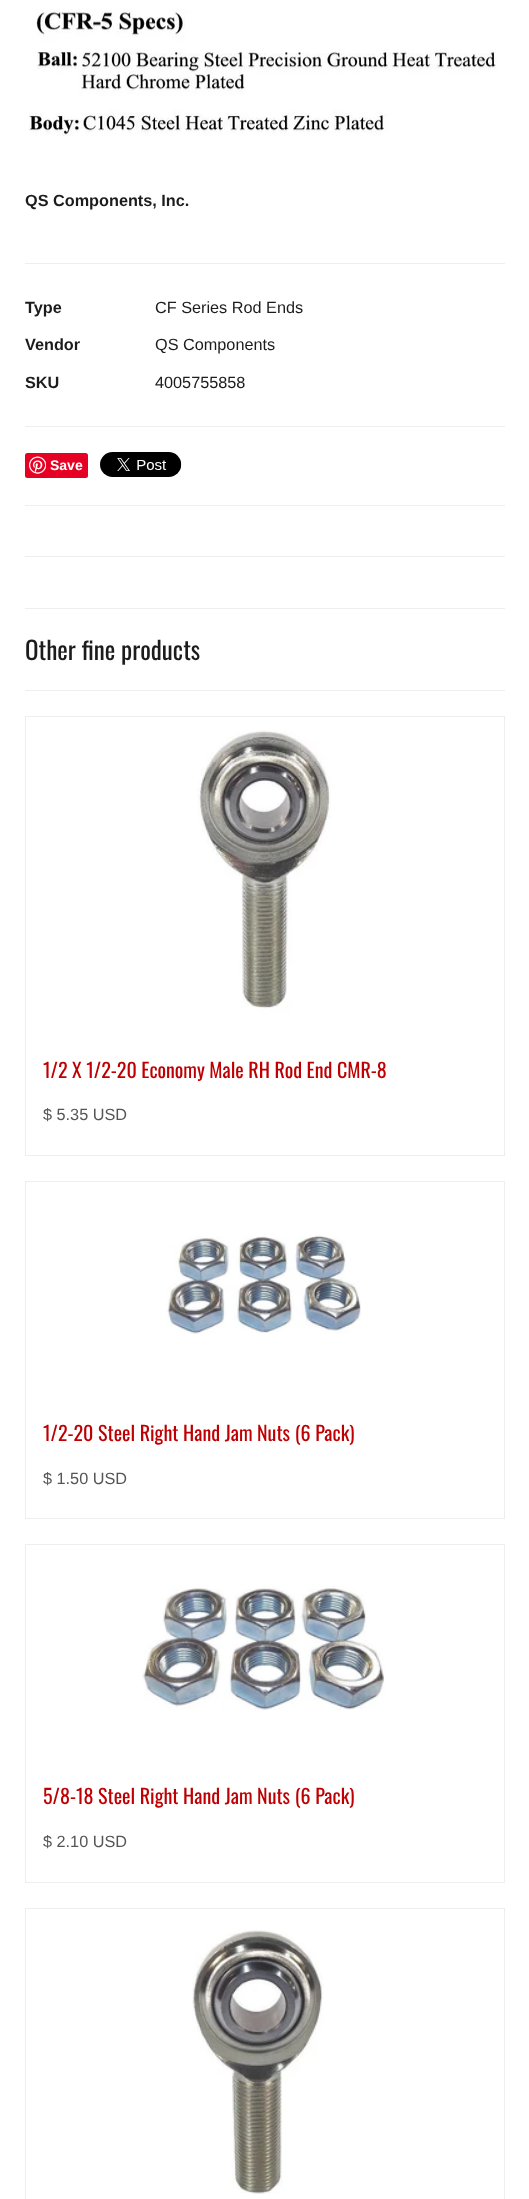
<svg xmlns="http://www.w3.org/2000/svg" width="529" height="2199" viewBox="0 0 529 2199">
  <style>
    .t1 { font: bold 16.25px Liberation Sans; fill: #1c1c1c; }
    .t2 { font: 16.25px Liberation Sans; fill: #1c1c1c; }
    .t3 { font: bold 14px Liberation Sans; fill: #fff; }
    .t4 { font: 25px Oswald; fill: #1c1c1c; }
    .t5 { font: 20px Oswald; fill: #bf0003; }
    .t6 { font: 16.25px Liberation Sans; fill: #555; }
  </style>
  <rect width="100%" height="100%" fill="#fff"/>
  <image x="29" y="9" width="468" height="127" href="images/1.png"/>
  <text x="25" y="206" class="t1">QS Components, Inc.</text>
  <rect x="25" y="263" width="480" height="1" fill="#eee"/>
  <text x="25" y="313" class="t1">Type</text>
  <text x="155" y="313" class="t2">CF Series Rod Ends</text>
  <text x="25" y="350" class="t1">Vendor</text>
  <text x="155" y="350" class="t2">QS Components</text>
  <text x="25" y="388" class="t1">SKU</text>
  <text x="155" y="388" class="t2">4005755858</text>
  <rect x="25" y="426" width="480" height="1" fill="#eee"/>
  <rect x="25" y="453" width="63" height="25" rx="2.5" fill="#e60023"/>
  <image x="29" y="456" width="17" height="18" href="images/2.png"/>
  <text x="50" y="470" class="t3">Save</text>
  <image x="100" y="452" width="82" height="25" href="images/3.png"/>
  <rect x="25" y="505" width="480" height="1" fill="#eee"/>
  <rect x="25" y="556" width="480" height="1" fill="#eee"/>
  <rect x="25" y="608" width="480" height="1" fill="#eee"/>
  <text x="25" y="660" class="t4">Other fine products</text>
  <rect x="25" y="690" width="480" height="1" fill="#eee"/>
  <rect x="25.5" y="716.5" width="479" height="439" fill="none" stroke="#eee"/>
  <image x="197" y="730" width="134" height="282" href="images/4.png"/>
  <text x="43" y="1078" class="t5">1/2 X 1/2-20 Economy Male RH Rod End CMR-8</text>
  <text x="43" y="1120" class="t6">$ 5.35 USD</text>
  <rect x="25.5" y="1181.5" width="479" height="337" fill="none" stroke="#eee"/>
  <image x="165" y="1235" width="196" height="99" href="images/5.png"/>
  <text x="43" y="1441" class="t5">1/2-20 Steel Right Hand Jam Nuts (6 Pack)</text>
  <text x="43" y="1484" class="t6">$ 1.50 USD</text>
  <rect x="25.5" y="1544.5" width="479" height="338" fill="none" stroke="#eee"/>
  <image x="142" y="1586" width="243" height="124" href="images/6.png"/>
  <text x="43" y="1804" class="t5">5/8-18 Steel Right Hand Jam Nuts (6 Pack)</text>
  <text x="43" y="1847" class="t6">$ 2.10 USD</text>
  <rect x="25.5" y="1908.5" width="479" height="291" fill="none" stroke="#eee"/>
  <image x="192" y="1930" width="132" height="264" href="images/7.png"/>
</svg>
